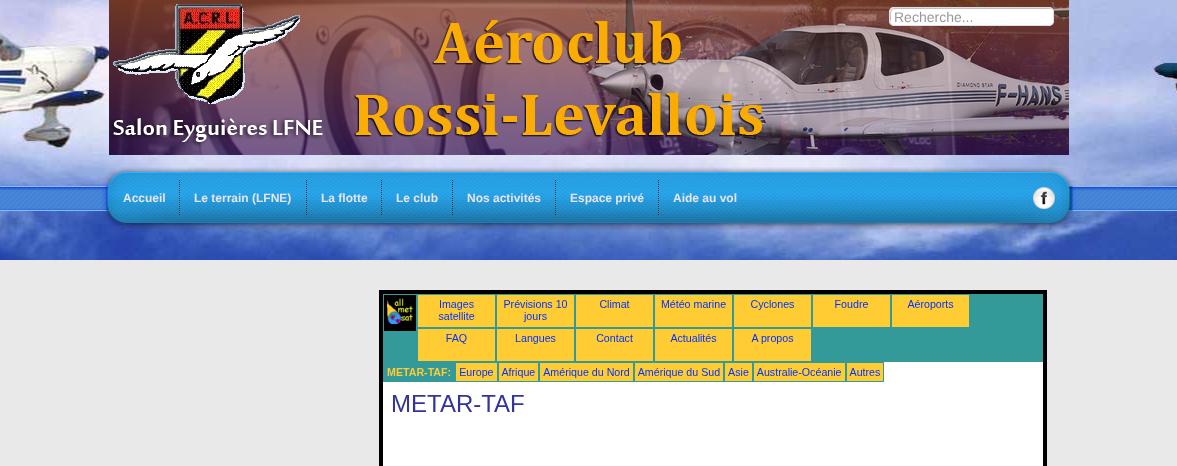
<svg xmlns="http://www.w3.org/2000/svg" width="1177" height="466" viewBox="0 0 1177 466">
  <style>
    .t1 { font: 14px Liberation Sans; fill: #999; }
    .t2 { font: bold 12px Liberation Sans; fill: #e7e4ed; }
  </style>
  <rect width="100%" height="100%" fill="#fff"/>
  <image x="0" y="0" width="1177" height="260" href="images/1.png"/>
  <image x="0" y="167" width="1177" height="63" href="images/2.png"/>
  <image x="109" y="0" width="960" height="155" href="images/3.png"/>
  <rect x="889" y="7" width="165" height="19" rx="5" fill="#fff"/>
  <path d="M895 9H1050L1052 10L1050 8H894L892 9C889 10 889 23 892 24C890 23 891 20 891 18C891 15 890 9 895 9Z" fill="#c0c0c0"/>
  <rect x="889.5" y="7.5" width="164" height="18" rx="4.5" fill="none" stroke="#dedede"/>
  <text x="894" y="22" class="t1">Recherche...</text>
  <image x="1033" y="187" width="22" height="22" href="images/4.png"/>
  <text x="123" y="202" class="t2">Accueil</text>
  <path d="M179.5 180V216" fill="none" stroke="#333" stroke-dasharray="1 1"/>
  <text x="194" y="202" class="t2">Le terrain (LFNE)</text>
  <path d="M306.5 180V216" fill="none" stroke="#333" stroke-dasharray="1 1"/>
  <text x="321" y="202" class="t2">La flotte</text>
  <path d="M381.5 180V216" fill="none" stroke="#333" stroke-dasharray="1 1"/>
  <text x="396" y="202" class="t2">Le club</text>
  <path d="M452.5 180V216" fill="none" stroke="#333" stroke-dasharray="1 1"/>
  <text x="467" y="202" class="t2">Nos activités</text>
  <path d="M555.5 180V216" fill="none" stroke="#333" stroke-dasharray="1 1"/>
  <text x="570" y="202" class="t2">Espace privé</text>
  <path d="M658.5 180V216" fill="none" stroke="#333" stroke-dasharray="1 1"/>
  <text x="673" y="202" class="t2">Aide au vol</text>
  <rect x="0" y="260" width="1177" height="206" fill="#e9e9e9"/>
  <image x="379" y="290" width="668" height="176" href="images/5.png"/>
</svg>
